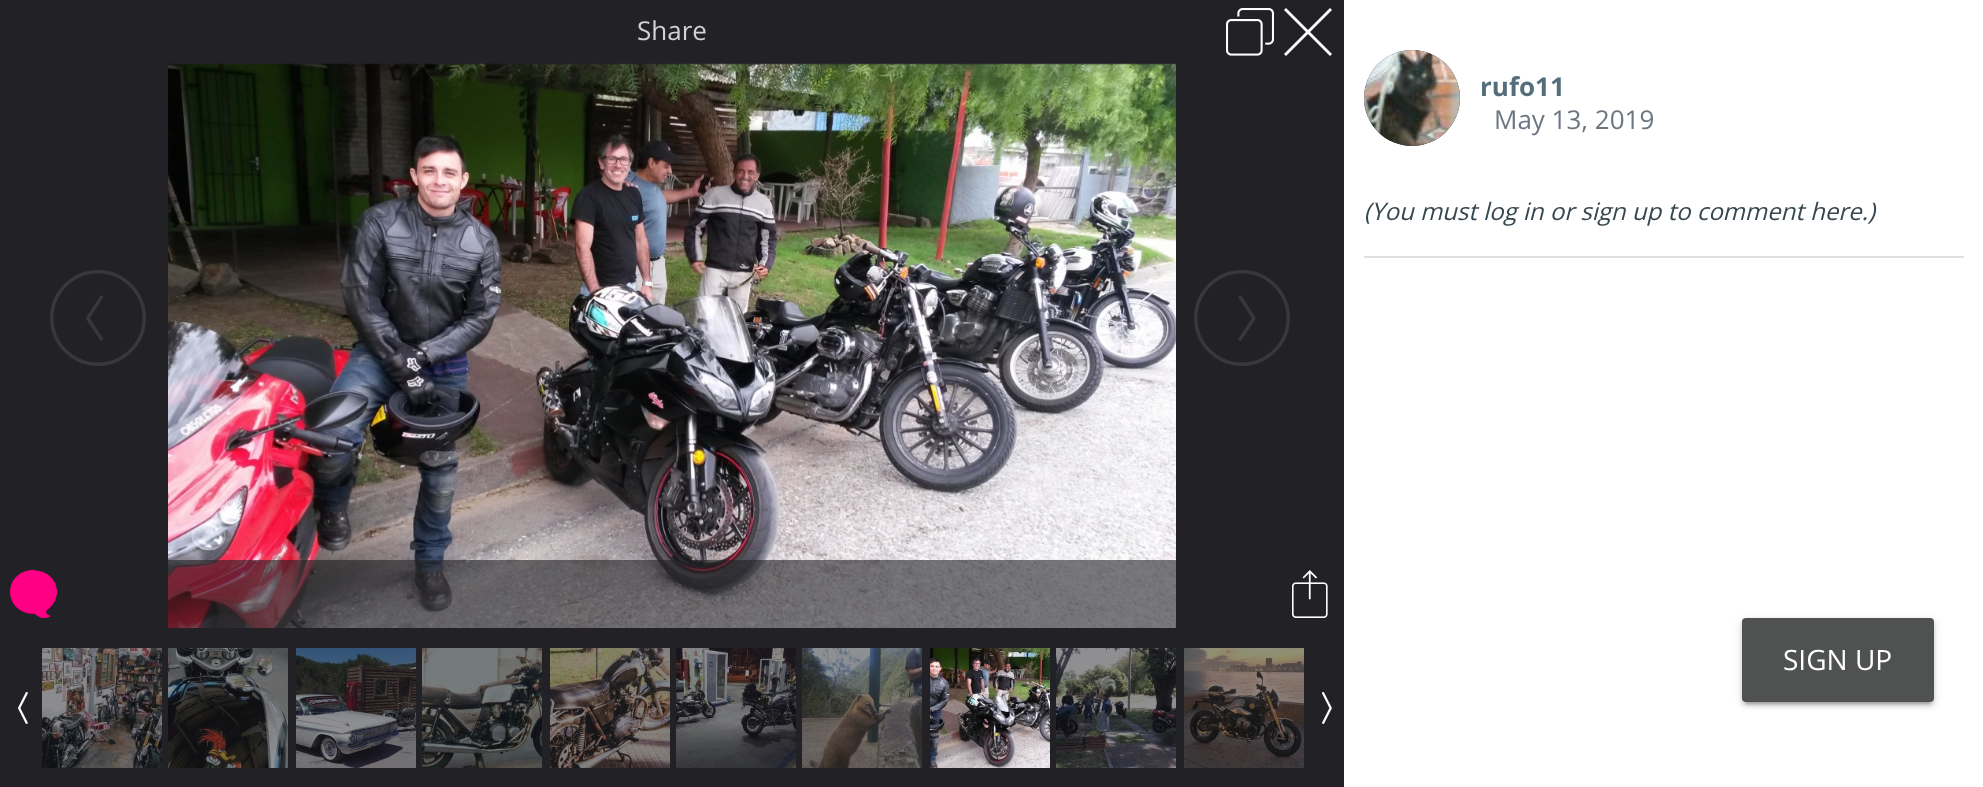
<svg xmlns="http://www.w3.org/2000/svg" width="1983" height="787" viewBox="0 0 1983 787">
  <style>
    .t1 { font: 26px Open Sans; fill: #d3d3d4; }
    .t2 { font: bold 26px Open Sans; fill: #546e7a; }
    .t3 { font: 26px Open Sans; fill: #6c7680; }
    .t4 { font: italic 24px Open Sans; fill: #37474f; }
    .t5 { font: 28px Open Sans; fill: #fff; }
  </style>
  <rect width="100%" height="100%" fill="#212126"/>
  <image x="1226" y="8" width="48" height="48" href="images/1.png"/>
  <path d="M1332 10L1310 32L1332 54L1330 56L1308 34L1286 56L1284 54L1306 32L1284 10L1286 8L1308 30L1330 8Z" fill="#fff"/>
  <text x="637" y="40" class="t1">Share</text>
  <image x="50" y="270" width="96" height="96" href="images/2.png"/>
  <image x="168" y="63" width="1008" height="565" href="images/3.png"/>
  <image x="1194" y="270" width="96" height="96" href="images/4.png"/>
  <rect x="168" y="560" width="1008" height="68" fill="#21212499"/>
  <path d="M57 592C57 600 52 607 46 611C46 614 48 615 51 616C46 619 40 619 35 614C3 614 2 573 31 570C37 570 42 571 47 574C53 578 57 584 57 592Z" fill="#ff0084"/>
  <image x="1292" y="570" width="36" height="48" href="images/5.png"/>
  <image x="18" y="692" width="10" height="32" href="images/6.png"/>
  <image x="42" y="648" width="120" height="120" href="images/7.png"/>
  <image x="168" y="648" width="120" height="120" href="images/8.png"/>
  <image x="296" y="648" width="120" height="120" href="images/9.png"/>
  <image x="422" y="648" width="120" height="120" href="images/10.png"/>
  <image x="550" y="648" width="120" height="120" href="images/11.png"/>
  <image x="676" y="648" width="120" height="120" href="images/12.png"/>
  <image x="802" y="648" width="120" height="120" href="images/13.png"/>
  <image x="930" y="648" width="120" height="120" href="images/14.png"/>
  <image x="1056" y="648" width="120" height="120" href="images/15.png"/>
  <image x="1184" y="648" width="120" height="120" href="images/16.png"/>
  <image x="1322" y="692" width="10" height="32" href="images/17.png"/>
  <rect x="1344" y="0" width="639" height="787" fill="#fff"/>
  <rect x="1364" y="256" width="600" height="2" fill="#e0e0e0"/>
  <circle cx="1412" cy="98" r="48" fill="#152c4e"/>
  <image x="1364" y="50" width="96" height="96" href="images/18.png"/>
  <text x="1480" y="96" class="t2">rufo11</text>
  <text x="1494" y="129" class="t3">May 13, 2019</text>
  <text x="1364" y="220" class="t4">(You must log in or sign up to comment here.)</text>
  <rect x="1742" y="620" width="192" height="84" rx="4" fill="#0000001f" filter="blur(5px)"/>
  <rect x="1746" y="628" width="184" height="76" fill="#00000033" filter="blur(1px)"/>
  <rect x="1742" y="622" width="192" height="84" rx="4" fill="#00000024" filter="blur(2px)"/>
  <rect x="1742" y="618" width="192" height="84" rx="4" fill="#505252"/>
  <text x="1783" y="670" class="t5">SIGN UP</text>
</svg>
